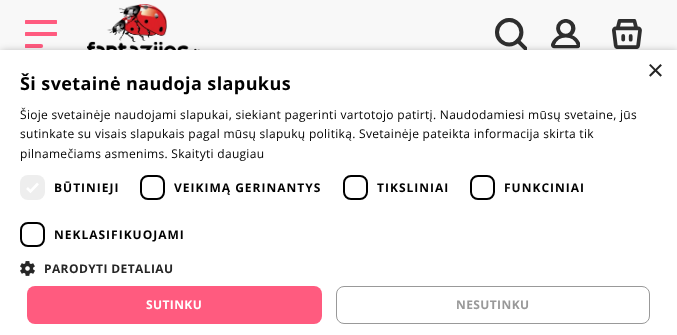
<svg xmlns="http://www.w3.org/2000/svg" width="677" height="335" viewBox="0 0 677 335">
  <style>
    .t1 { font: 29px Liberation Sans; fill: #262626; }
    .t2 { font: bold 18px Open Sans; letter-spacing: 0.4px; fill: #000; }
    .t3 { font: 12px Open Sans; letter-spacing: 0.3px; fill: #000; }
    .t4 { font: bold 12px Open Sans; letter-spacing: 1px; fill: #000; }
    .t5 { font: bold 12px Open Sans; letter-spacing: 0.4px; fill: #262626; }
    .t6 { font: bold 12px Open Sans; letter-spacing: 0.4px; fill: #fff; }
    .t7 { font: bold 12px Open Sans; letter-spacing: 0.4px; fill: #999; }
  </style>
  <rect width="100%" height="100%" fill="#f8f8f8"/>
  <image x="25" y="20" width="32" height="28" href="images/1.png"/>
  <image x="87" y="4" width="113" height="46" href="images/2.png"/>
  <image x="495" y="18" width="32" height="32" href="images/3.png"/>
  <image x="551" y="19" width="29" height="30" href="images/4.png"/>
  <image x="612" y="19" width="30" height="30" href="images/5.png"/>
  <rect x="1" y="52" width="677" height="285" fill="#00000059" filter="blur(4px)"/>
  <rect x="0" y="50" width="677" height="285" fill="#fff"/>
  <text x="647" y="80" class="t1">×</text>
  <text x="20" y="90" class="t2">Ši svetainė naudoja slapukus</text>
  <text x="20" y="119" class="t3">Šioje svetainėje naudojami slapukai, siekiant pagerinti vartotojo patirtį. Naudodamiesi mūsų svetaine, jūs</text>
  <text x="20" y="138" class="t3">sutinkate su visais slapukais pagal mūsų slapukų politiką. Svetainėje pateikta informacija skirta tik</text>
  <text x="20" y="158" class="t3">pilnamečiams asmenims. Skaityti daugiau</text>
  <rect x="20" y="175" width="25" height="25" rx="8" fill="#eee"/>
  <path d="M27 188L30.5 191.5L38 183.5" fill="none" stroke="#fff" stroke-width="2.6"/>
  <text x="54" y="192" class="t4">BŪTINIEJI</text>
  <rect x="141" y="176" width="23" height="23" rx="7" fill="none" stroke="#000" stroke-width="2"/>
  <text x="174" y="192" class="t4">VEIKIMĄ GERINANTYS</text>
  <rect x="344" y="176" width="23" height="23" rx="7" fill="none" stroke="#000" stroke-width="2"/>
  <text x="377" y="192" class="t4">TIKSLINIAI</text>
  <rect x="471" y="176" width="23" height="23" rx="7" fill="none" stroke="#000" stroke-width="2"/>
  <text x="504" y="192" class="t4">FUNKCINIAI</text>
  <rect x="21" y="223" width="23" height="23" rx="7" fill="none" stroke="#000" stroke-width="2"/>
  <text x="54" y="239" class="t4">NEKLASIFIKUOJAMI</text>
  <image x="20" y="261" width="15" height="15" href="images/6.png"/>
  <text x="44" y="273" class="t5">PARODYTI DETALIAU</text>
  <rect x="27" y="286" width="295" height="38" rx="8" fill="#ff5b7f"/>
  <text x="146" y="309" class="t6">SUTINKU</text>
  <rect x="336.5" y="286.5" width="313" height="37" rx="7.5" fill="none" stroke="#999"/>
  <text x="456" y="309" class="t7">NESUTINKU</text>
</svg>
